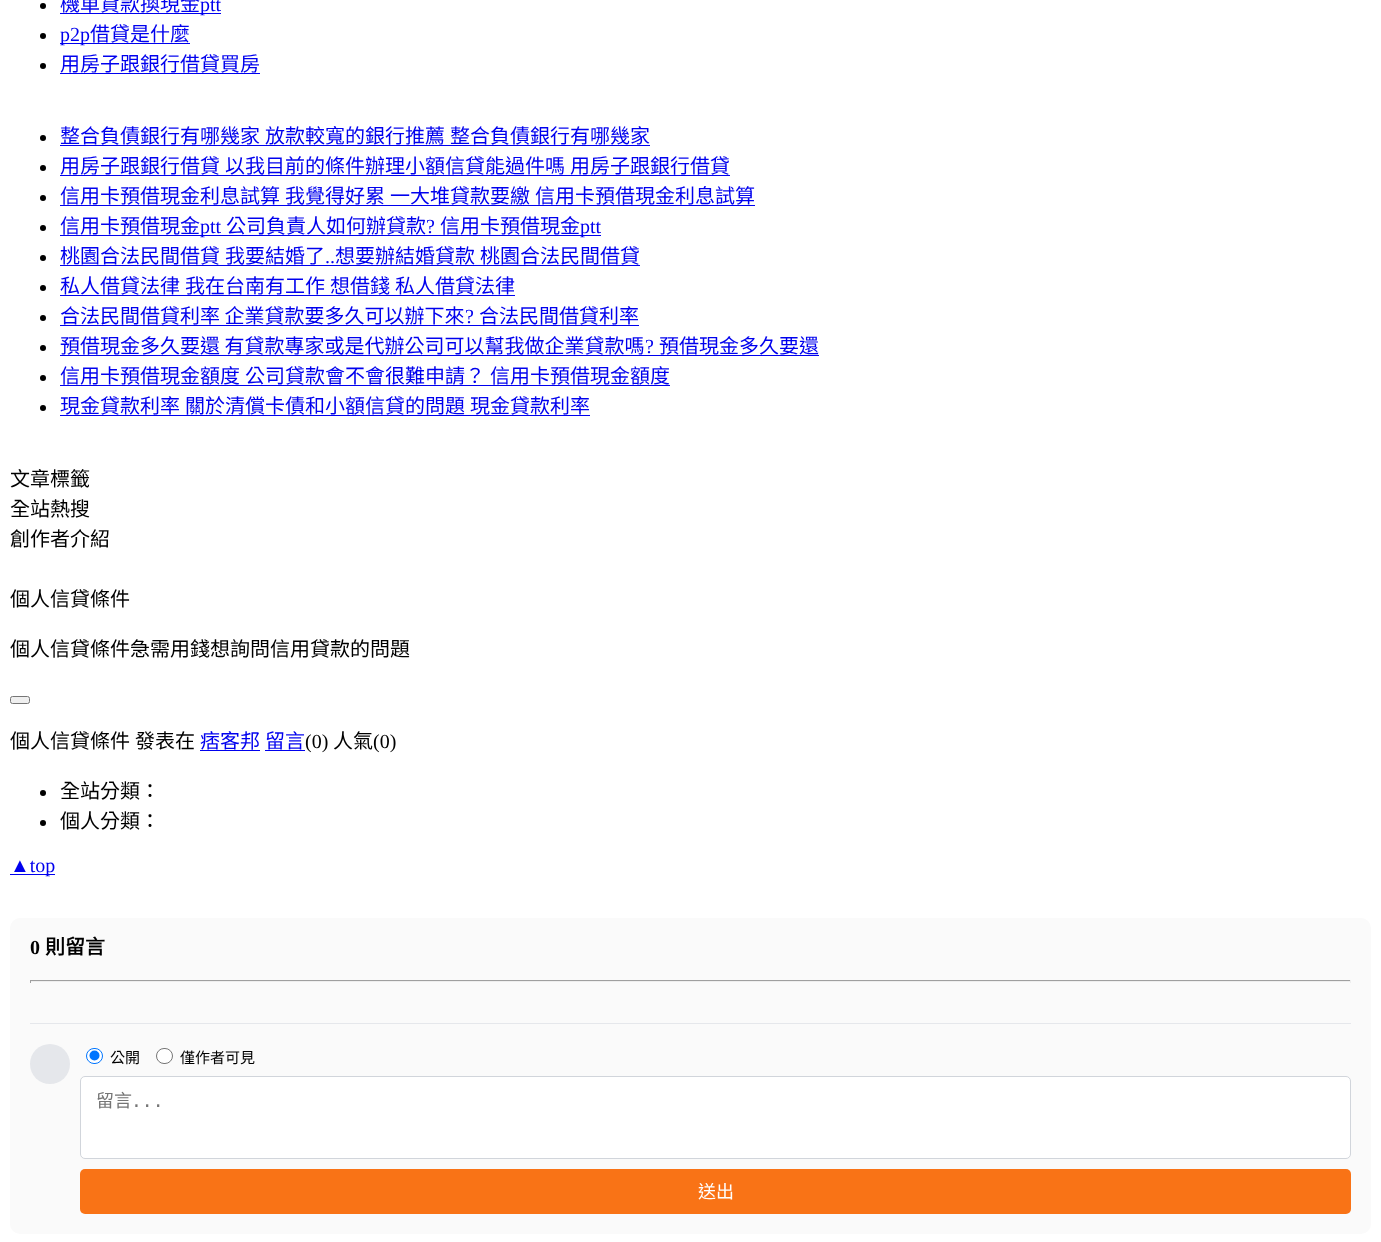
<svg xmlns="http://www.w3.org/2000/svg" width="1381" height="1242" viewBox="0 0 1381 1242">
  <style>
    .t1 { font: 20px Noto Sans CJK TC; fill: #00e; }
    .t2 { font: 20px Liberation Serif; fill: #00e; }
    .t3 { font: 20px Noto Sans CJK TC; fill: #000; }
    .t4 { font: 20px Liberation Serif; fill: #000; }
    .t5 { font: bold 20px Liberation Serif; fill: #000; }
    .t6 { font: bold 20px Noto Sans CJK TC; fill: #000; }
    .t7 { font: 15px Noto Sans CJK TC; fill: #000; }
    .t8 { font: 18px Noto Sans CJK TC; fill: #757575; }
    .t9 { font: 18px DejaVu Sans Mono; fill: #757575; }
    .t10 { font: 18px Noto Sans CJK TC; fill: #fff; }
  </style>
  <rect width="100%" height="100%" fill="#fff"/>
  <circle cx="43" cy="6" r="3" fill="#000"/>
  <text x="60" y="11" class="t1">機車貸款換現金</text>
  <rect x="60" y="13" width="161" height="1" fill="#00e"/>
  <text x="200" y="11" class="t2">ptt</text>
  <circle cx="43" cy="36" r="3" fill="#000"/>
  <rect x="60" y="43" width="130" height="1" fill="#00e"/>
  <text x="60" y="41" class="t2">p2p</text>
  <text x="90" y="41" class="t1">借貸是什麼</text>
  <circle cx="43" cy="66" r="3" fill="#000"/>
  <text x="60" y="71" class="t1">用房子跟銀行借貸買房</text>
  <rect x="60" y="73" width="200" height="1" fill="#00e"/>
  <circle cx="43" cy="138" r="3" fill="#000"/>
  <text x="60" y="143" word-spacing="0.5" class="t1">整合負債銀行有哪幾家 放款較寬的銀行推薦 整合負債銀行有哪幾家</text>
  <rect x="60" y="145" width="590" height="1" fill="#00e"/>
  <circle cx="43" cy="168" r="3" fill="#000"/>
  <text x="60" y="173" word-spacing="0.5" class="t1">用房子跟銀行借貸 以我目前的條件辦理小額信貸能過件嗎 用房子跟銀行借貸</text>
  <rect x="60" y="175" width="670" height="1" fill="#00e"/>
  <circle cx="43" cy="198" r="3" fill="#000"/>
  <text x="60" y="203" word-spacing="0.5" class="t1">信用卡預借現金利息試算 我覺得好累 一大堆貸款要繳 信用卡預借現金利息試算</text>
  <rect x="60" y="205" width="695" height="1" fill="#00e"/>
  <circle cx="43" cy="228" r="3" fill="#000"/>
  <text x="60" y="233" class="t1">信用卡預借現金</text>
  <rect x="60" y="235" width="541" height="1" fill="#00e"/>
  <text x="200" y="233" class="t2">ptt</text>
  <text x="226" y="233" class="t1">公司負責人如何辦貸款</text>
  <text x="426" y="233" class="t2">?</text>
  <text x="440" y="233" class="t1">信用卡預借現金</text>
  <text x="580" y="233" class="t2">ptt</text>
  <circle cx="43" cy="258" r="3" fill="#000"/>
  <text x="60" y="263" word-spacing="0.5" class="t1">桃園合法民間借貸 我要結婚了</text>
  <text x="335" y="263" word-spacing="0.5" class="t1">想要辦結婚貸款 桃園合法民間借貸</text>
  <text x="325" y="263" class="t2">..</text>
  <rect x="60" y="265" width="580" height="1" fill="#00e"/>
  <circle cx="43" cy="288" r="3" fill="#000"/>
  <text x="60" y="293" word-spacing="0.5" class="t1">私人借貸法律 我在台南有工作 想借錢 私人借貸法律</text>
  <rect x="60" y="295" width="455" height="1" fill="#00e"/>
  <circle cx="43" cy="318" r="3" fill="#000"/>
  <text x="60" y="323" class="t1">合法民間借貸利率 企業貸款要多久可以辦下來</text>
  <text x="465" y="323" class="t2">?</text>
  <rect x="60" y="325" width="579" height="1" fill="#00e"/>
  <text x="479" y="323" class="t1">合法民間借貸利率</text>
  <circle cx="43" cy="348" r="3" fill="#000"/>
  <text x="60" y="353" class="t1">預借現金多久要還 有貸款專家或是代辦公司可以幫我做企業貸款嗎</text>
  <text x="645" y="353" class="t2">?</text>
  <rect x="60" y="355" width="759" height="1" fill="#00e"/>
  <text x="659" y="353" class="t1">預借現金多久要還</text>
  <circle cx="43" cy="378" r="3" fill="#000"/>
  <text x="60" y="383" word-spacing="0.5" class="t1">信用卡預借現金額度 公司貸款會不會很難申請？ 信用卡預借現金額度</text>
  <rect x="60" y="385" width="610" height="1" fill="#00e"/>
  <circle cx="43" cy="408" r="3" fill="#000"/>
  <text x="60" y="413" word-spacing="0.5" class="t1">現金貸款利率 關於清償卡債和小額信貸的問題 現金貸款利率</text>
  <rect x="60" y="415" width="530" height="1" fill="#00e"/>
  <text x="10" y="486" class="t3">文章標籤</text>
  <text x="10" y="516" class="t3">全站熱搜</text>
  <text x="10" y="546" class="t3">創作者介紹</text>
  <text x="10" y="606" class="t3">個人信貸條件</text>
  <text x="10" y="656" class="t3">個人信貸條件急需用錢想詢問信用貸款的問題</text>
  <rect x="10.5" y="696.5" width="19" height="7" rx="2" fill="#efefef" stroke="#767676"/>
  <text x="10" y="748" class="t3">個人信貸條件</text>
  <text x="135" y="748" class="t3">發表在</text>
  <text x="200" y="748" class="t1">痞客邦</text>
  <rect x="200" y="750" width="60" height="1" fill="#00e"/>
  <text x="265" y="748" class="t1">留言</text>
  <rect x="265" y="750" width="40" height="1" fill="#00e"/>
  <text x="305" y="748" class="t4">(0)</text>
  <text x="333" y="748" class="t3">人氣</text>
  <text x="373" y="748" class="t4">(0)</text>
  <circle cx="43" cy="793" r="3" fill="#000"/>
  <text x="60" y="798" class="t3">全站分類：</text>
  <circle cx="43" cy="823" r="3" fill="#000"/>
  <text x="60" y="828" class="t3">個人分類：</text>
  <rect x="10" y="874" width="45" height="1" fill="#00e"/>
  <text x="10" y="872" class="t2">▲top</text>
  <rect x="10" y="918" width="1361" height="316" rx="10" fill="#fafafa"/>
  <text x="30" y="954" class="t5">0</text>
  <text x="45" y="954" class="t6">則留言</text>
  <rect x="30" y="980" width="1321" height="1" fill="#9f9f9f"/>
  <rect x="1350" y="980" width="1" height="3" fill="#eee"/>
  <rect x="30" y="981" width="1321" height="1" fill="#eee"/>
  <rect x="30" y="980" width="1" height="3" fill="#9f9f9f"/>
  <rect x="30" y="1023" width="1321" height="1" fill="#e5e7eb"/>
  <circle cx="50" cy="1064" r="20" fill="#e5e7eb"/>
  <rect x="86.5" y="1048.5" width="16" height="15" rx="7.5" fill="#fff" stroke="#0075ff"/>
  <circle cx="94.5" cy="1055.5" r="5" fill="#0075ff"/>
  <text x="110" y="1063" class="t7">公開</text>
  <rect x="156.5" y="1048.5" width="16" height="15" rx="7.5" fill="#fff" stroke="#767676"/>
  <text x="180" y="1063" class="t7">僅作者可見</text>
  <rect x="80.5" y="1076.5" width="1270" height="82" rx="4.5" fill="#fff" stroke="#d1d5db"/>
  <text x="96" y="1107" class="t8">留言</text>
  <text x="131" y="1107" class="t9">...</text>
  <rect x="80" y="1169" width="1271" height="45" rx="5" fill="#f97316"/>
  <text x="698" y="1198" class="t10">送出</text>
</svg>
